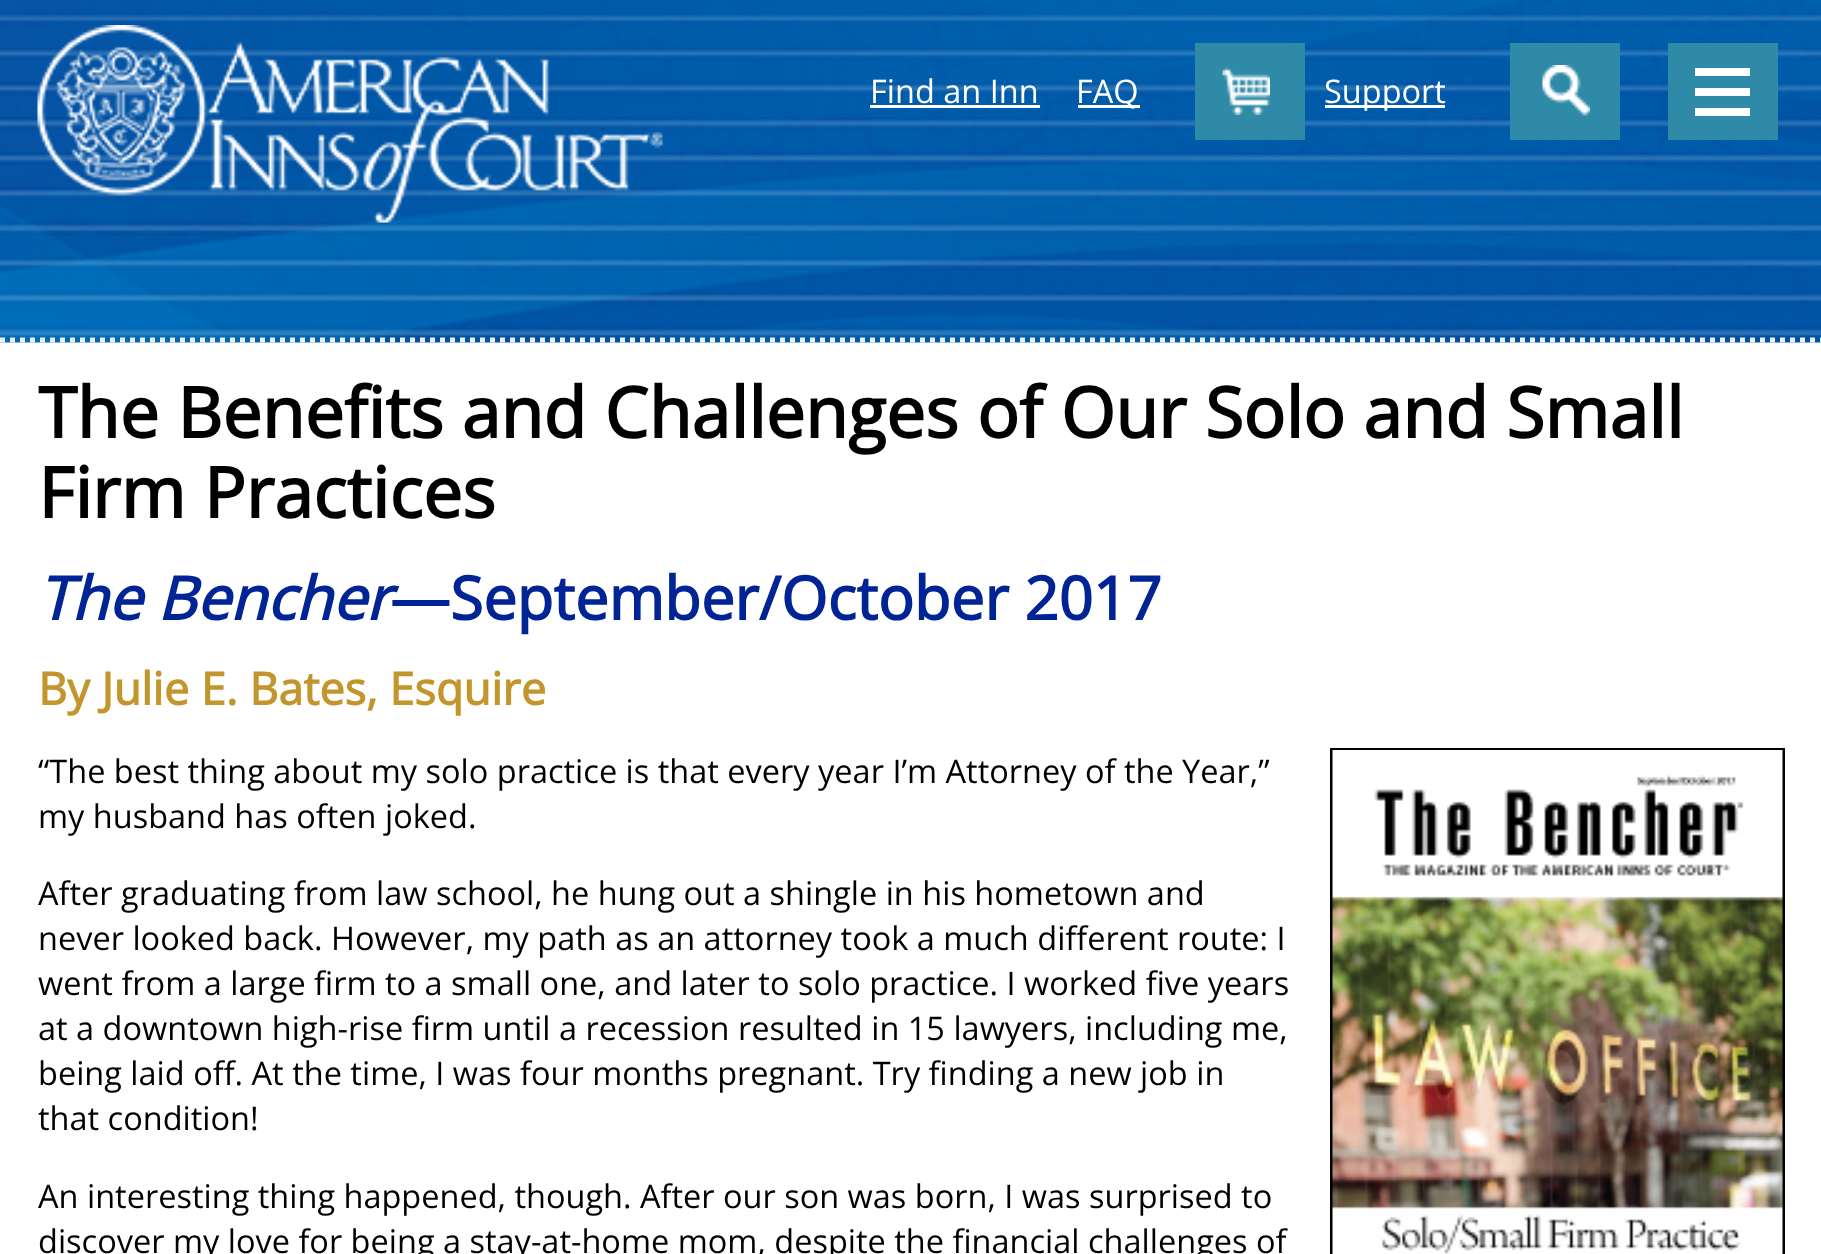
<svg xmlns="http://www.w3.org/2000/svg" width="1821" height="1254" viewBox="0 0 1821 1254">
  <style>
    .t1 { font: 32.5px Open Sans; fill: #fff; }
    .t2 { font: bold 70px Open Sans; fill: #000; }
    .t3 { font: italic bold 60px Open Sans; fill: #002395; }
    .t4 { font: bold 60px Open Sans; fill: #002395; }
    .t5 { font: bold 45px Open Sans; fill: #c3962d; }
    .t6 { font: 32.5px Open Sans; fill: #000; }
  </style>
  <rect width="100%" height="100%" fill="#fff"/>
  <image x="0" y="0" width="1821" height="343" href="images/1.png"/>
  <path d="M0 340H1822.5" fill="none" stroke="#eee" stroke-width="5" stroke-dasharray="5 5"/>
  <image x="37" y="25" width="626" height="198" href="images/2.png"/>
  <text x="870" y="103" class="t1">Find an Inn</text>
  <rect x="870" y="105" width="170" height="3" fill="#fff"/>
  <rect x="1078" y="105" width="62" height="3" fill="#fff"/>
  <text x="1076" y="103" class="t1">FAQ</text>
  <rect x="1195" y="43" width="110" height="97" fill="#2f8aa7"/>
  <image x="1222" y="67" width="48" height="48" href="images/3.png"/>
  <rect x="1325" y="105" width="120" height="3" fill="#fff"/>
  <text x="1324" y="103" class="t1">Support</text>
  <rect x="1510" y="43" width="110" height="97" fill="#2f8aa7"/>
  <image x="1542" y="65" width="48" height="51" href="images/4.png"/>
  <rect x="1668" y="43" width="110" height="97" fill="#2f8aa7"/>
  <rect x="1695" y="68" width="55" height="8" fill="#fff"/>
  <rect x="1695" y="88" width="55" height="8" fill="#fff"/>
  <rect x="1695" y="108" width="55" height="8" fill="#fff"/>
  <text x="38" y="438" class="t2">The Benefits and Challenges of Our Solo and Small</text>
  <text x="38" y="518" class="t2">Firm Practices</text>
  <text x="38" y="620" class="t3">The Bencher</text>
  <text x="390" y="620" class="t4">—September/October 2017</text>
  <text x="38" y="705" class="t5">By Julie E. Bates, Esquire</text>
  <text x="38" y="783" class="t6">“The best thing about my solo practice is that every year I’m Attorney of the Year,”</text>
  <rect x="1331.5" y="749.5" width="452" height="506" fill="none" stroke="#000" stroke-width="3"/>
  <image x="1332" y="750" width="451" height="504" href="images/5.png"/>
  <text x="38" y="828" class="t6">my husband has often joked.</text>
  <text x="38" y="905" class="t6">After graduating from law school, he hung out a shingle in his hometown and</text>
  <text x="38" y="950" class="t6">never looked back. However, my path as an attorney took a much different route: I</text>
  <text x="38" y="995" class="t6">went from a large firm to a small one, and later to solo practice. I worked five years</text>
  <text x="38" y="1040" class="t6">at a downtown high-rise firm until a recession resulted in 15 lawyers, including me,</text>
  <text x="38" y="1085" class="t6">being laid off. At the time, I was four months pregnant. Try finding a new job in</text>
  <text x="38" y="1130" class="t6">that condition!</text>
  <text x="38" y="1208" class="t6">An interesting thing happened, though. After our son was born, I was surprised to</text>
  <text x="38" y="1253" class="t6">discover my love for being a stay-at-home mom, despite the financial challenges of</text>
</svg>
